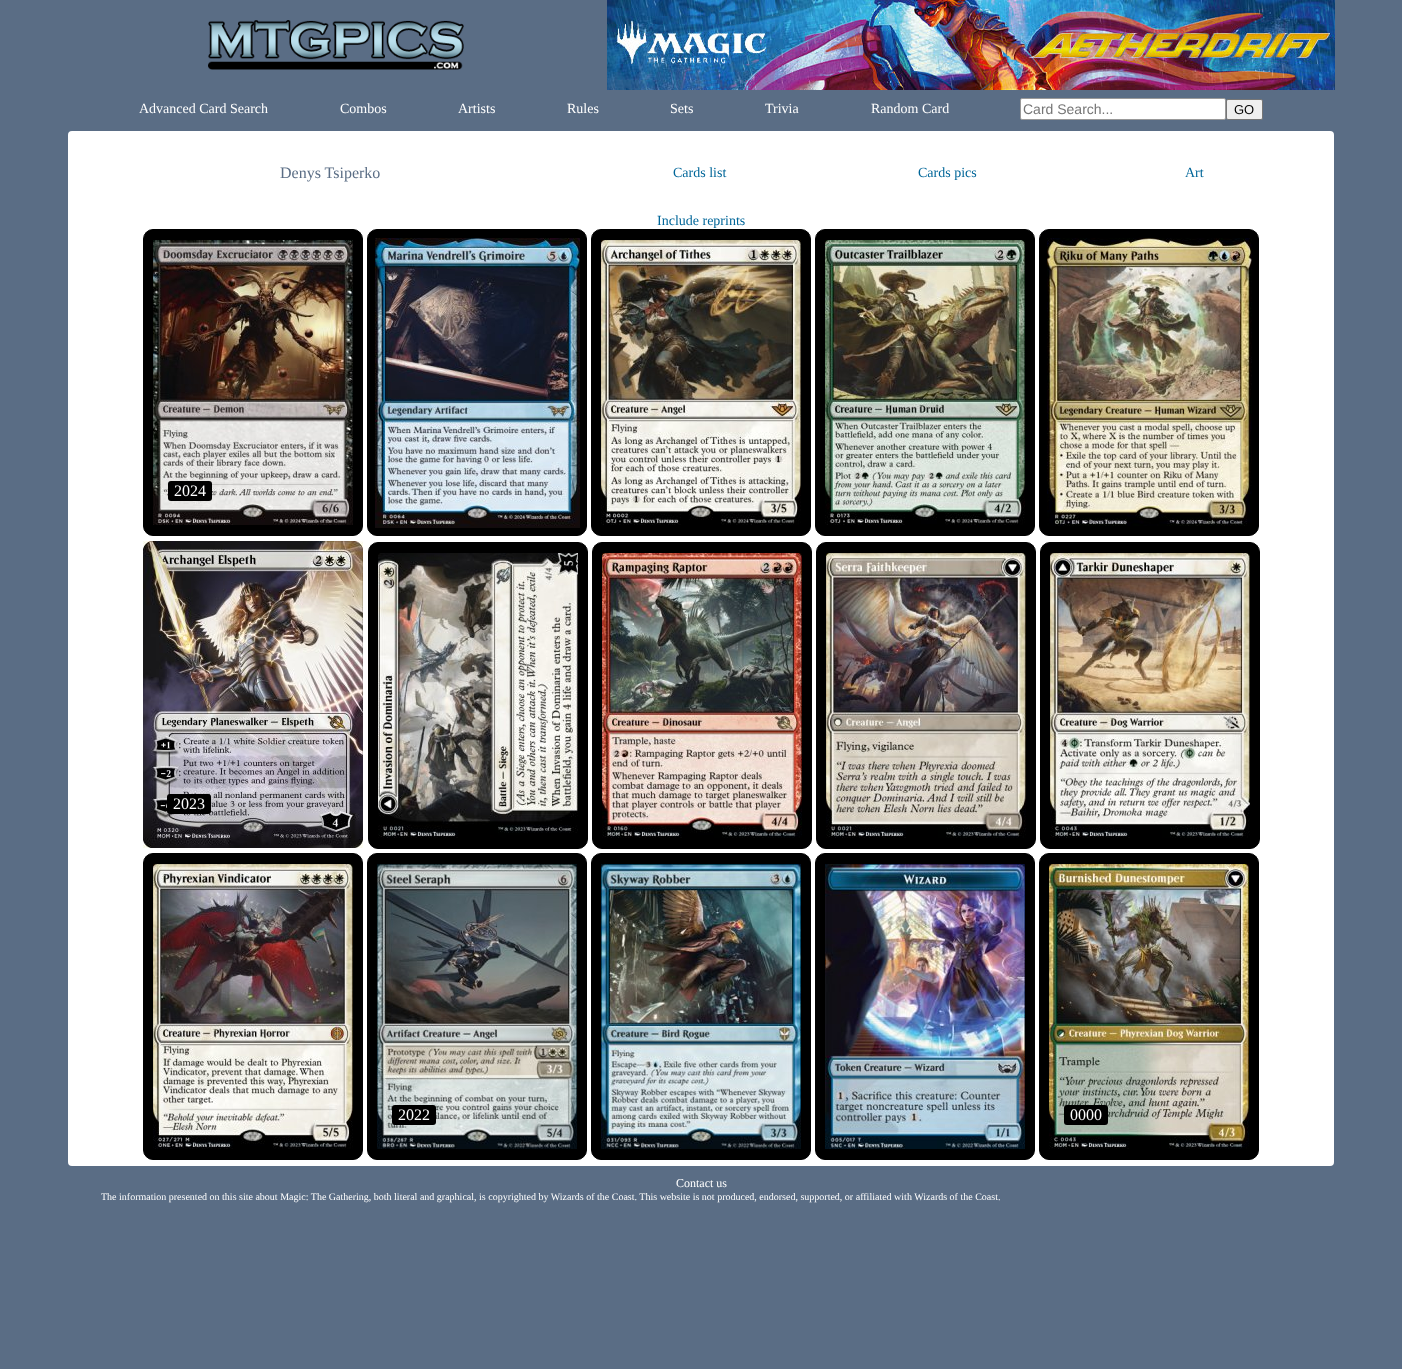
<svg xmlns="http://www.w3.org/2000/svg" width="1402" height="1369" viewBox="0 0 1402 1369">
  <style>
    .t1 { font: 14px Liberation Serif; fill: #fff; }
    .t2 { font: 14px Liberation Sans; fill: #757575; }
    .t3 { font: 13px Liberation Sans; fill: #000; }
    .t4 { font: 16px Liberation Serif; fill: #5a6d85; }
    .t5 { font: 14px Liberation Serif; fill: #069; }
    .t6 { font: 16px Liberation Serif; fill: #fff; }
    .t7 { font: 12px Liberation Serif; fill: #fff; }
    .t8 { font: 10px Liberation Serif; fill: #fff; }
  </style>
  <rect width="100%" height="100%" fill="#5a6d85"/>
  <image x="208" y="20" width="256" height="50" href="images/1.png"/>
  <image x="607" y="0" width="728" height="90" href="images/2.png"/>
  <text x="139" y="113" class="t1">Advanced Card Search</text>
  <text x="340" y="113" class="t1">Combos</text>
  <text x="458" y="113" class="t1">Artists</text>
  <text x="567" y="113" class="t1">Rules</text>
  <text x="670" y="113" class="t1">Sets</text>
  <text x="765" y="113" class="t1">Trivia</text>
  <text x="871" y="113" class="t1">Random Card</text>
  <rect x="1020.5" y="98.5" width="205" height="21" rx="1.5" fill="#fff" stroke="#999"/>
  <text x="1023" y="114" class="t2">Card Search...</text>
  <rect x="1226.5" y="99.5" width="36" height="20" rx="1.5" fill="#efefef" stroke="#767676"/>
  <text x="1234" y="114" class="t3">GO</text>
  <rect x="68" y="131" width="1266" height="1035" rx="4" fill="#fff"/>
  <text x="280" y="178" class="t4">Denys Tsiperko</text>
  <text x="673" y="177" class="t5">Cards list</text>
  <text x="918" y="177" class="t5">Cards pics</text>
  <text x="1185" y="177" class="t5">Art</text>
  <text x="657" y="225" class="t5">Include reprints</text>
  <rect x="143.5" y="229.5" width="219" height="306" rx="9.5" fill="#000" stroke="#000"/>
  <image x="153" y="240" width="200" height="285" href="images/3.png"/>
  <rect x="168" y="481" width="44" height="20" rx="3" fill="#000"/>
  <text x="174" y="496" class="t6">2024</text>
  <rect x="367.5" y="229.5" width="219" height="306" rx="9.5" fill="#000" stroke="#000"/>
  <image x="375" y="238" width="205" height="290" href="images/4.png"/>
  <rect x="591.5" y="229.5" width="219" height="306" rx="9.5" fill="#000" stroke="#000"/>
  <image x="601" y="240" width="200" height="285" href="images/5.png"/>
  <rect x="815.5" y="229.5" width="219" height="306" rx="9.5" fill="#000" stroke="#000"/>
  <image x="825" y="240" width="200" height="285" href="images/6.png"/>
  <rect x="1039.5" y="229.5" width="219" height="306" rx="9.5" fill="#000" stroke="#000"/>
  <image x="1047" y="238" width="205" height="288" href="images/7.png"/>
  <image x="143" y="541" width="220" height="307" href="images/8.png"/>
  <rect x="167" y="794" width="44" height="20" rx="3" fill="#000"/>
  <text x="173" y="809" class="t6">2023</text>
  <rect x="368.5" y="542.5" width="219" height="306" rx="9.5" fill="#000" stroke="#000"/>
  <image x="378" y="553" width="200" height="285" href="images/9.png"/>
  <rect x="592.5" y="542.5" width="219" height="306" rx="9.5" fill="#000" stroke="#000"/>
  <image x="602" y="553" width="200" height="285" href="images/10.png"/>
  <rect x="816.5" y="542.5" width="219" height="306" rx="9.5" fill="#000" stroke="#000"/>
  <image x="826" y="553" width="200" height="285" href="images/11.png"/>
  <rect x="1040.5" y="542.5" width="219" height="306" rx="9.5" fill="#000" stroke="#000"/>
  <image x="1050" y="553" width="200" height="285" href="images/12.png"/>
  <rect x="143.5" y="853.5" width="219" height="306" rx="9.5" fill="#000" stroke="#000"/>
  <image x="153" y="864" width="200" height="285" href="images/13.png"/>
  <rect x="367.5" y="853.5" width="219" height="306" rx="9.5" fill="#000" stroke="#000"/>
  <image x="377" y="864" width="200" height="285" href="images/14.png"/>
  <rect x="392" y="1105" width="44" height="20" rx="3" fill="#000"/>
  <text x="398" y="1120" class="t6">2022</text>
  <rect x="591.5" y="853.5" width="219" height="306" rx="9.5" fill="#000" stroke="#000"/>
  <image x="601" y="864" width="200" height="285" href="images/15.png"/>
  <rect x="815.5" y="853.5" width="219" height="306" rx="9.5" fill="#000" stroke="#000"/>
  <image x="825" y="864" width="200" height="285" href="images/16.png"/>
  <rect x="1039.5" y="853.5" width="219" height="306" rx="9.5" fill="#000" stroke="#000"/>
  <image x="1049" y="864" width="200" height="285" href="images/17.png"/>
  <rect x="1064" y="1105" width="44" height="20" rx="3" fill="#000"/>
  <text x="1070" y="1120" class="t6">0000</text>
  <text x="676" y="1187" class="t7">Contact us</text>
  <text x="101" y="1200" class="t8">The information presented on this site about Magic: The Gathering, both literal and graphical, is copyrighted by Wizards of the Coast. This website is not produced, endorsed, supported, or affiliated with Wizards of the Coast.</text>
</svg>
